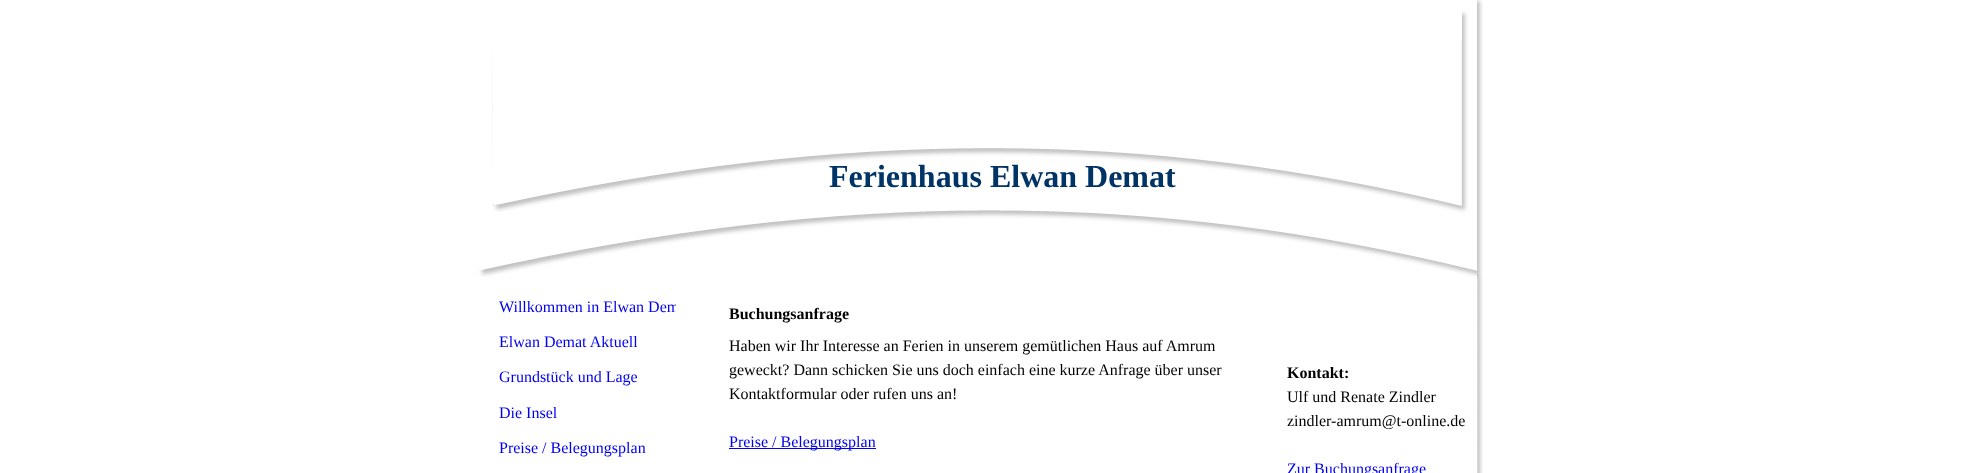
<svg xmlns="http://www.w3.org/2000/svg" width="1966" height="473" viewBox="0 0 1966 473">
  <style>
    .t1 { font: bold 32px Liberation Serif; fill: #036; }
    .t2 { font: 16px Liberation Serif; fill: #00e; }
    .t3 { font: bold 16px Liberation Serif; fill: #000; }
    .t4 { font: 16px Liberation Serif; fill: #000; }
  </style>
  <defs>
    <clipPath id="clip1"><rect x="479" y="289" width="197" height="35"/></clipPath>
  </defs>
  <rect width="100%" height="100%" fill="#fff"/>
  <image x="492" y="0" width="991" height="211" href="images/1.png"/>
  <text x="829" y="187" class="t1">Ferienhaus Elwan Demat</text>
  <image x="479" y="211" width="220" height="66" href="images/2.png"/>
  <image x="699" y="211" width="578" height="27" href="images/3.png"/>
  <image x="1277" y="211" width="200" height="66" href="images/4.png"/>
  <image x="1477" y="211" width="6" height="68" href="images/5.png"/>
  <g clip-path="url(#clip1)">
    <text x="499" y="312" class="t2">Willkommen in Elwan Dem</text>
  </g>
  <text x="499" y="347" class="t2">Elwan Demat Aktuell</text>
  <text x="499" y="382" class="t2">Grundstück und Lage</text>
  <text x="499" y="418" class="t2">Die Insel</text>
  <text x="499" y="453" class="t2">Preise / Belegungsplan</text>
  <text x="729" y="319" class="t3">Buchungsanfrage</text>
  <text x="729" y="351" class="t4">Haben wir Ihr Interesse an Ferien in unserem gemütlichen Haus auf Amrum</text>
  <text x="729" y="375" class="t4">geweckt? Dann schicken Sie uns doch einfach eine kurze Anfrage über unser</text>
  <text x="729" y="399" class="t4">Kontaktformular oder rufen uns an!</text>
  <rect x="729" y="448" width="147" height="1" fill="#00e"/>
  <text x="729" y="447" class="t2">Preise / Belegungsplan</text>
  <text x="1287" y="378" class="t3">Kontakt:</text>
  <text x="1287" y="402" class="t4">Ulf und Renate Zindler</text>
  <text x="1287" y="426" class="t4">zindler-amrum@t-online.de</text>
  <text x="1287" y="474" class="t2">Zur Buchungsanfrage</text>
  <image x="1477" y="279" width="6" height="194" href="images/6.png"/>
</svg>
